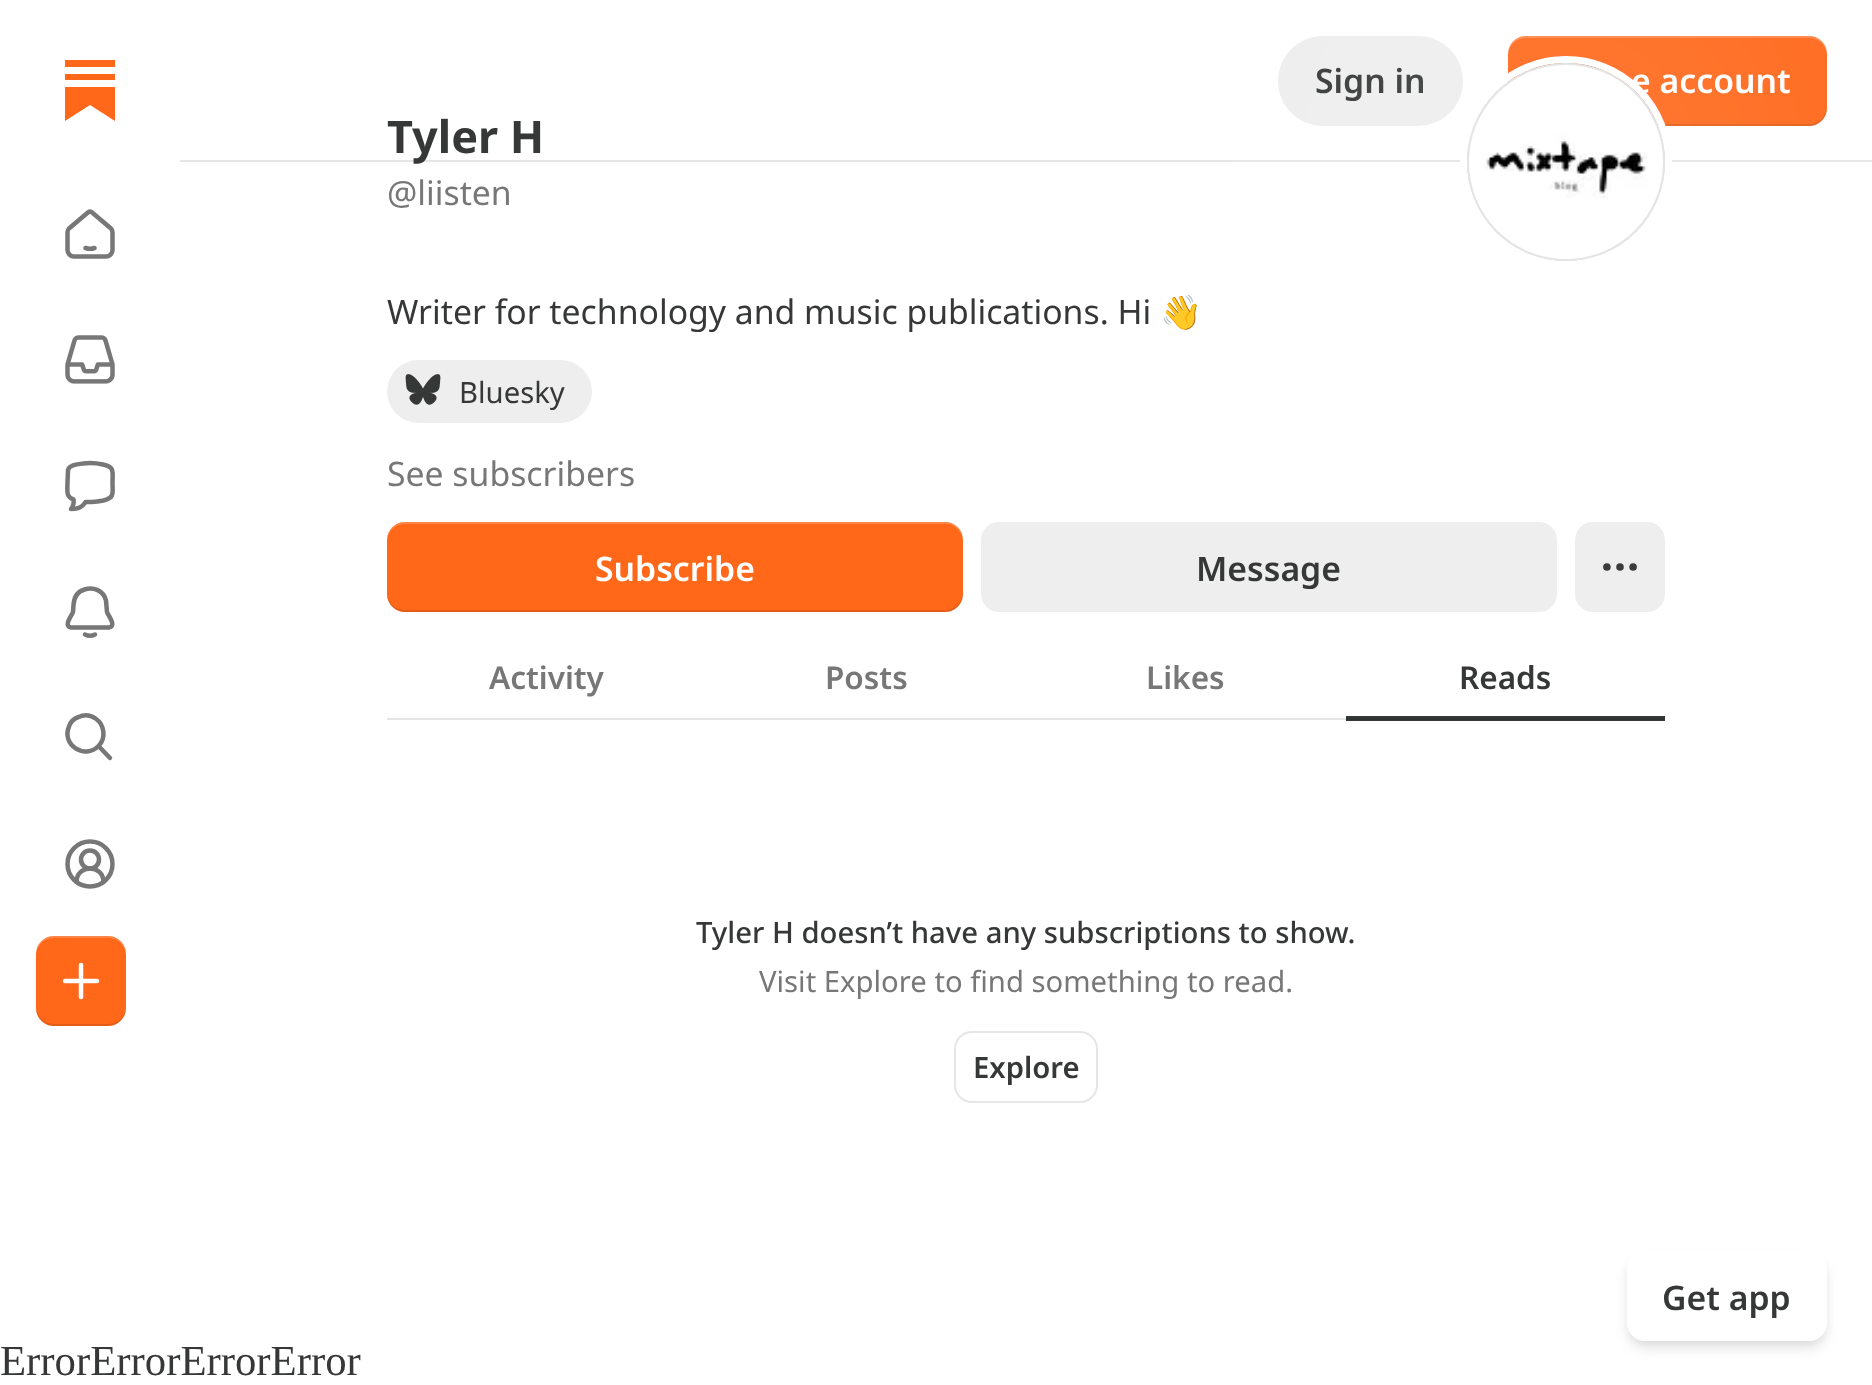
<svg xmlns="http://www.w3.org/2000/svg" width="1872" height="1385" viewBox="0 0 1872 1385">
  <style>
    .t1 { font: 600 33.75px Noto Sans; fill: #363737; }
    .t2 { font: 600 33.75px Noto Sans; fill: #fff; }
    .t3 { font: bold 45px Noto Sans; fill: #363737; }
    .t4 { font: 33.75px Noto Sans; fill: #777; }
    .t5 { font: 33.75px Noto Sans; fill: #363737; }
    .t6 { font: 33.75px Noto Color Emoji; fill: #363737; }
    .t7 { font: 29.25px Noto Sans; fill: #363737; }
    .t8 { font: 600 31.5px Noto Sans; fill: #777; }
    .t9 { font: 600 31.5px Noto Sans; fill: #363737; }
    .t10 { font: 500 29.25px Noto Sans; fill: #363737; }
    .t11 { font: 29.25px Noto Sans; fill: #777; }
    .t12 { font: 600 29.25px Noto Sans; fill: #363737; }
    .t13 { font: 42.75px Liberation Serif; fill: #363737; }
  </style>
  <rect width="100%" height="100%" fill="#fff"/>
  <rect x="387" y="718" width="959" height="2" fill="#e6e6e6"/>
  <rect x="65" y="60" width="50" height="7" fill="#ff6719"/>
  <rect x="65" y="74" width="50" height="6" fill="#ff6719"/>
  <path d="M65 87V121L90 105L115 121V87Z" fill="#ff6719"/>
  <path d="M85.5 248C88.5 249 91.5 249 94.5 248M67.5 232V250C67.5 253.5 70.5 256.5 74 256.5H106C109.5 256.5 112.5 253.5 112.5 250V232C112.5 230.5 112 229.5 111 228.5L91.5 212C90.5 211.5 89.5 211.5 88.5 212L69 228.5C68 229.5 67.5 230.5 67.5 232Z" fill="none" stroke="#777" stroke-width="4.5" stroke-linecap="round" stroke-linejoin="round"/>
  <image x="65" y="335" width="50" height="49" href="images/1.png"/>
  <path d="M71 509C73.5 506.5 74 501.5 73.5 499.5C65.5 497 67.5 490 67.5 482.5L68 470C69.5 464.5 78.5 464 83 463.5C89.5 462.5 96.5 463 103 464.5C115 467 112.5 471.5 112.5 482.5C112.5 493 115 497.5 103.5 500.5C97.5 501.5 91.5 502.5 85.5 502C83 506.5 77 509 71 509Z" fill="none" stroke="#777" stroke-width="4.5" stroke-linecap="round" stroke-linejoin="round"/>
  <path d="M85 634.5C88 636 92 636 95 634.5M84.5 589.5C77 591.5 74 598 73.5 605L73 612C72 615.5 63 626 71 627.5H109C117 626 108 615.5 107 612L106 600.5C103.5 590.5 93.5 586.5 84.5 589.5Z" fill="none" stroke="#777" stroke-width="4.5" stroke-linecap="round" stroke-linejoin="round"/>
  <path d="M110 758L98.5 746M98.5 746C106 738.5 105 725 95.5 718.5C90.5 715 84 714.5 78.5 717C74 718.5 70.5 722 69 726.5C61 745 85 760 98.5 746Z" fill="none" stroke="#777" stroke-width="4.5" stroke-linecap="round" stroke-linejoin="round"/>
  <path d="M103.5 882C103.5 864 76.5 864 76.5 882" fill="none" stroke="#777" stroke-width="4.5" stroke-linecap="round" stroke-linejoin="round"/>
  <circle cx="90" cy="859.5" r="9" fill="none" stroke="#777" stroke-width="4.5"/>
  <circle cx="90" cy="864" r="22.5" fill="none" stroke="#777" stroke-width="4.5"/>
  <rect x="36" y="936" width="90" height="90" rx="18" fill="#ff6719"/>
  <path d="M36 1006V1008C36 1018 44 1026 54 1026H108C118 1026 126 1018 126 1008V1006C126 1016 118 1024 108 1024H54C44 1024 36 1016 36 1006Z" fill="#0000001a"/>
  <path d="M54 938H108C118 938 126 946 126 956V954C126 944 118 936 108 936H54C44 936 36 944 36 954V956C36 946 44 938 54 938Z" fill="#ffffff33"/>
  <path d="M65 981H97M81 965V997" fill="none" stroke="#fff" stroke-width="4.5" stroke-linecap="round" stroke-linejoin="round"/>
  <rect x="180" y="160" width="1692" height="2" fill="#e6e6e6"/>
  <rect x="1278" y="36" width="185" height="90" rx="45" fill="#eee"/>
  <text x="1315" y="93" class="t1">Sign in</text>
  <rect x="1508" y="36" width="319" height="90" rx="18" fill="#ff6719"/>
  <path d="M1508 106V108C1508 118 1516 126 1526 126H1809C1819 126 1827 118 1827 108V106C1827 116 1819 124 1809 124H1526C1516 124 1508 116 1508 106Z" fill="#0000001a"/>
  <path d="M1526 38H1809C1819 38 1827 46 1827 56V54C1827 44 1819 36 1809 36H1526C1516 36 1508 44 1508 54V56C1508 46 1516 38 1526 38Z" fill="#ffffff33"/>
  <text x="1631" y="93" class="t2">e account</text>
  <text x="387" y="153" class="t3">Tyler H</text>
  <text x="387" y="205" class="t4">@liisten</text>
  <rect x="1575" y="522" width="90" height="90" rx="18" fill="#eee"/>
  <circle cx="1620" cy="567" r="1.9" fill="none" stroke="#363737" stroke-width="3.8"/>
  <circle cx="1633.1" cy="567" r="1.9" fill="none" stroke="#363737" stroke-width="3.8"/>
  <circle cx="1606.9" cy="567" r="1.9" fill="none" stroke="#363737" stroke-width="3.8"/>
  <rect x="1346" y="716" width="319" height="5" fill="#363737"/>
  <rect x="1346" y="718" width="319" height="2" fill="#313232"/>
  <rect x="1460" y="56" width="212" height="212" rx="106" fill="#fff" filter="blur(225px)"/>
  <circle cx="1566" cy="162" r="102.5" fill="none" stroke="#fff" stroke-width="7"/>
  <circle cx="1566" cy="162" r="98" fill="none" stroke="#0000001a" stroke-width="2"/>
  <circle cx="1566" cy="162" r="99" fill="#eee"/>
  <image x="1467" y="63" width="198" height="198" href="images/2.png"/>
  <circle cx="1566" cy="162" r="98" fill="none" stroke="#0000001a" stroke-width="2"/>
  <text x="387" y="324" class="t5">Writer for technology and music publications. Hi</text>
  <text x="1160" y="324" class="t6">👋</text>
  <rect x="387" y="360" width="205" height="63" rx="31.5" fill="#eee"/>
  <image x="405" y="374" width="36" height="31" href="images/3.png"/>
  <text x="459" y="403" class="t7">Bluesky</text>
  <text x="387" y="486" class="t4">See subscribers</text>
  <rect x="387" y="522" width="576" height="90" rx="18" fill="#ff6719"/>
  <path d="M387 592V594C387 604 395 612 405 612H945C955 612 963 604 963 594V592C963 602 955 610 945 610H405C395 610 387 602 387 592Z" fill="#0000001a"/>
  <path d="M405 524H945C955 524 963 532 963 542V540C963 530 955 522 945 522H405C395 522 387 530 387 540V542C387 532 395 524 405 524Z" fill="#ffffff33"/>
  <text x="595" y="581" class="t2">Subscribe</text>
  <rect x="981" y="522" width="576" height="90" rx="18" fill="#eee"/>
  <text x="1196" y="581" class="t1">Message</text>
  <text x="489" y="689" class="t8">Activity</text>
  <text x="825" y="689" class="t8">Posts</text>
  <text x="1146" y="689" class="t8">Likes</text>
  <text x="1459" y="689" class="t9">Reads</text>
  <text x="696" y="943" class="t10">Tyler H doesn’t have any subscriptions to show.</text>
  <text x="759" y="992" class="t11">Visit Explore to find something to read.</text>
  <rect x="955" y="1032" width="142" height="70" rx="17" fill="none" stroke="#e6e6e6" stroke-width="2"/>
  <text x="973" y="1078" class="t12">Explore</text>
  <rect x="1629" y="1258" width="196" height="85" rx="16" fill="#0000000f" filter="blur(4.5px)"/>
  <rect x="1629" y="1262" width="196" height="86" rx="16" fill="#0000001a" filter="blur(7px)"/>
  <rect x="1627" y="1251" width="200" height="90" rx="18" fill="#fff"/>
  <text x="1662" y="1310" class="t1">Get app</text>
  <text x="0" y="1375" class="t13">ErrorErrorErrorError</text>
</svg>
